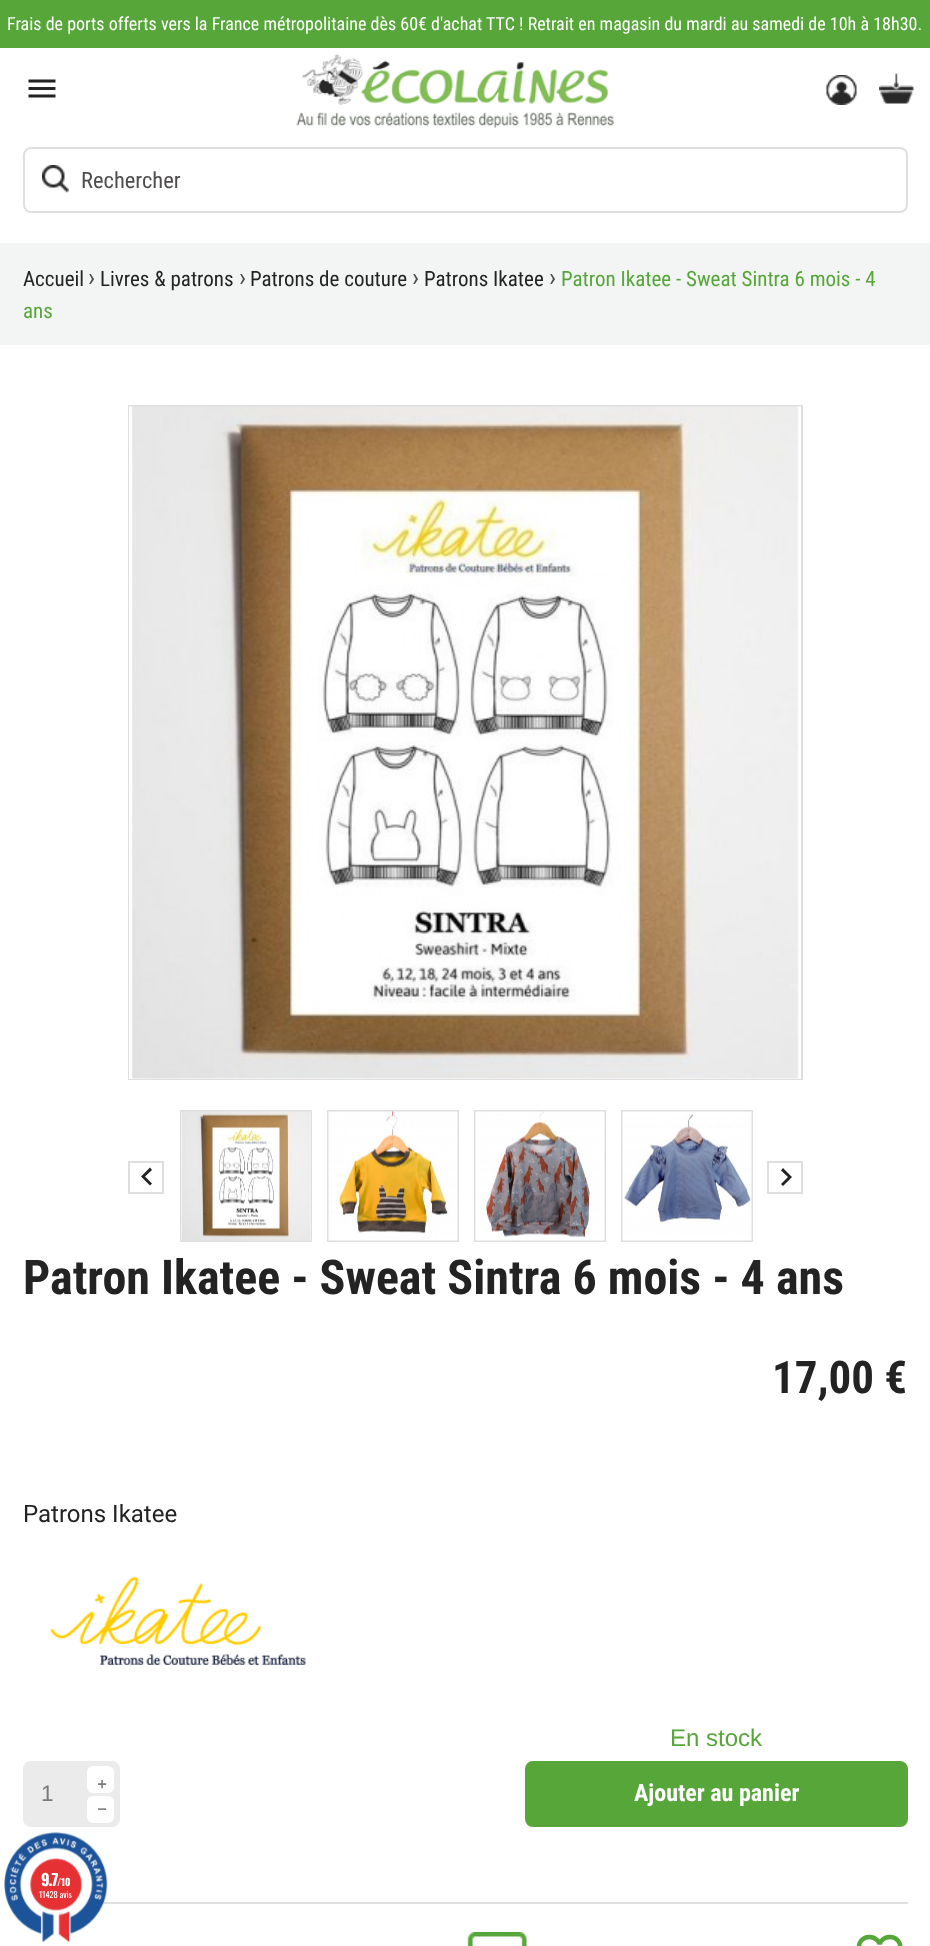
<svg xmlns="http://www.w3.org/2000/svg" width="930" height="1946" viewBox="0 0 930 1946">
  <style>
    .t1 { font: 18px Roboto Condensed; fill: #fff; }
    .t2 { font: 22.5px Roboto Condensed; fill: #4f4c4d; }
    .t3 { font: 21px Roboto Condensed; fill: #232323; }
    .t4 { font: 26px Roboto Condensed; fill: #4f4c4d; }
    .t5 { font: 21px Roboto Condensed; fill: #57a639; }
    .t6 { font: bold 48px Roboto Condensed; fill: #232323; }
    .t7 { font: bold 45px Roboto Condensed; fill: #232323; }
    .t8 { font: 24px Roboto; fill: #232323; }
    .t9 { font: 22.5px Liberation Sans; fill: #7a7a7a; }
    .t10 { font: 30px Noto Sans; fill: #7a7a7a; }
    .t11 { font: 24px Liberation Sans; fill: #57a639; }
    .t12 { font: bold 24px Roboto Condensed; fill: #fff; }
    .t13 { font: bold 16px Oswald; letter-spacing: -1px; fill: #fff; }
    .t14 { font: bold 10px Oswald; fill: #fff; }
    .t15 { font: 8.5px Oswald; fill: #fff; }
  </style>
  <rect width="100%" height="100%" fill="#fff"/>
  <rect x="0" y="0" width="930" height="48" fill="#57a639"/>
  <text x="7" y="30" class="t1">Frais de ports offerts vers la France métropolitaine dès 60€ d'achat TTC ! Retrait en magasin du mardi au samedi de 10h à 18h30.</text>
  <image x="28" y="79" width="28" height="19" href="images/1.png"/>
  <image x="296" y="53" width="318" height="75" href="images/2.png"/>
  <image x="826" y="75" width="31" height="30" href="images/3.png"/>
  <image x="879" y="73" width="35" height="31" href="images/4.png"/>
  <rect x="24" y="148" width="883" height="64" rx="7" fill="none" stroke="#dfdfdf" stroke-width="2"/>
  <image x="42" y="165" width="27" height="28" href="images/5.png"/>
  <text x="81" y="188" class="t2">Rechercher</text>
  <rect x="0" y="243" width="930" height="102" fill="#f3f4f4"/>
  <text x="23" y="286" class="t3">Accueil</text>
  <text x="88" y="286" class="t4">›</text>
  <text x="100" y="286" class="t3">Livres &amp; patrons</text>
  <text x="239" y="286" class="t4">›</text>
  <text x="250" y="286" class="t3">Patrons de couture</text>
  <text x="412" y="286" class="t4">›</text>
  <text x="424" y="286" class="t3">Patrons Ikatee</text>
  <text x="549" y="286" class="t4">›</text>
  <text x="561" y="286" class="t5">Patron Ikatee - Sweat Sintra 6 mois - 4</text>
  <text x="23" y="318" class="t5">ans</text>
  <rect x="129" y="406" width="673" height="673" fill="none" stroke="#dfdfdf" stroke-width="2"/>
  <rect x="129" y="1078" width="672" height="1" fill="#fff"/>
  <image x="129" y="406" width="672" height="673" href="images/6.png"/>
  <rect x="181" y="1111" width="130" height="130" fill="none" stroke="#dfdfdf" stroke-width="2"/>
  <image x="181" y="1111" width="130" height="130" href="images/7.png"/>
  <rect x="328" y="1111" width="130" height="130" fill="none" stroke="#dfdfdf" stroke-width="2"/>
  <image x="328" y="1111" width="130" height="130" href="images/8.png"/>
  <rect x="475" y="1111" width="130" height="130" fill="none" stroke="#dfdfdf" stroke-width="2"/>
  <image x="475" y="1111" width="130" height="130" href="images/9.png"/>
  <rect x="622" y="1111" width="130" height="130" fill="none" stroke="#dfdfdf" stroke-width="2"/>
  <image x="622" y="1111" width="130" height="130" href="images/10.png"/>
  <rect x="129" y="1162" width="34" height="31" fill="none" stroke="#dfdfdf" stroke-width="2"/>
  <path d="M152 1183.5L150 1185.5L141 1176.5L150 1167.5L152 1170L145 1176.5Z" fill="#232323"/>
  <rect x="768" y="1162" width="34" height="31" fill="none" stroke="#dfdfdf" stroke-width="2"/>
  <path d="M781 1184L788 1177L781 1170.5L783 1168L792 1177L783 1186Z" fill="#232323"/>
  <text x="23" y="1294" class="t6">Patron Ikatee - Sweat Sintra 6 mois - 4 ans</text>
  <text x="772" y="1393" class="t7">17,00 €</text>
  <text x="23" y="1522" class="t8">Patrons Ikatee</text>
  <image x="50" y="1576" width="256" height="89" href="images/11.png"/>
  <rect x="23" y="1761" width="97" height="66" rx="8" fill="#ebebeb"/>
  <text x="41" y="1801" class="t9">1</text>
  <rect x="87" y="1766" width="27" height="27" rx="6" fill="#fff"/>
  <text x="97" y="1786" class="t10">₊</text>
  <rect x="87" y="1796" width="27" height="27" rx="6" fill="#fff"/>
  <text x="97" y="1827" class="t10">⁻</text>
  <text x="670" y="1746" class="t11">En stock</text>
  <rect x="526" y="1762" width="381" height="64" rx="7" fill="#57a639" stroke="#57a639" stroke-width="2"/>
  <text x="634" y="1801" class="t12">Ajouter au panier</text>
  <rect x="102" y="1902" width="806" height="2" fill="#dfdfdf"/>
  <image x="467" y="1932" width="60" height="14" href="images/12.png"/>
  <image x="856" y="1934" width="47" height="12" href="images/13.png"/>
  <image x="4" y="1832" width="104" height="111" href="images/14.png"/>
  <text x="41" y="1886" class="t13">9.7</text>
  <text x="57" y="1886" class="t14">/10</text>
  <text x="39" y="1898" class="t15">11428 avis</text>
</svg>
